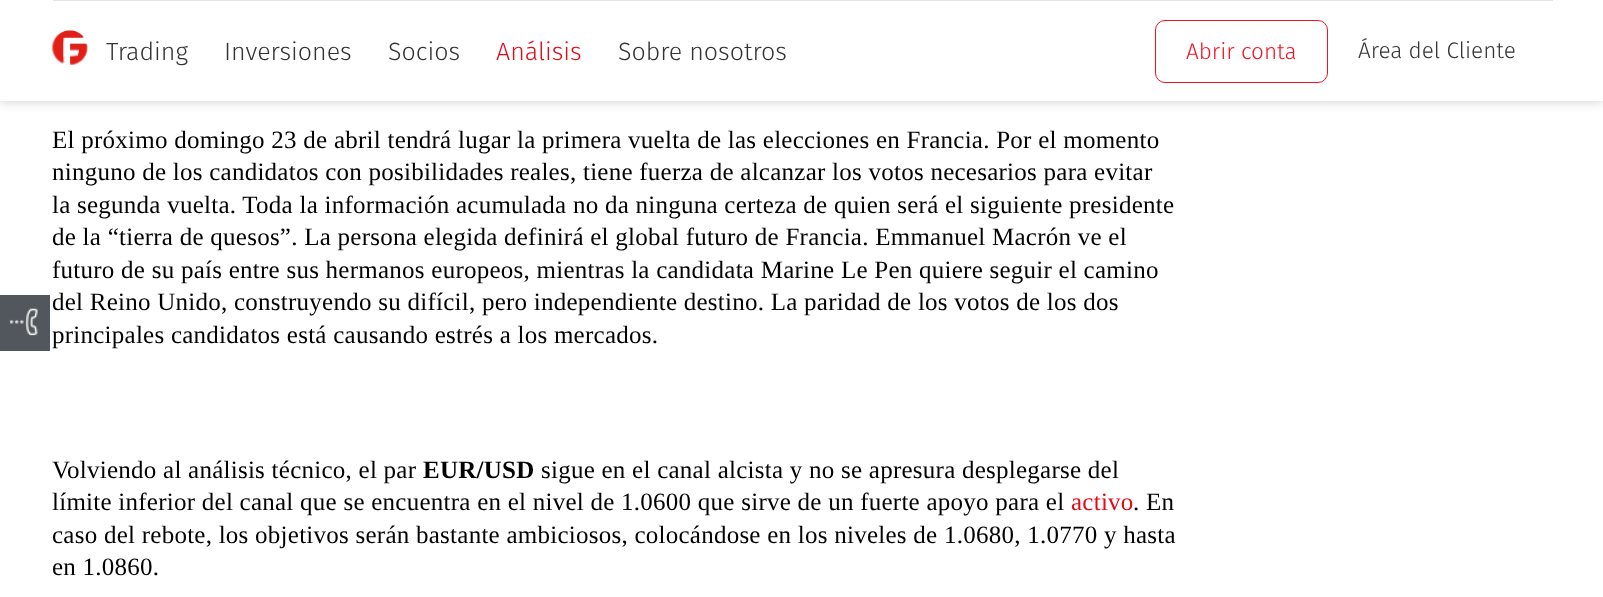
<svg xmlns="http://www.w3.org/2000/svg" width="1603" height="597" viewBox="0 0 1603 597">
  <style>
    .t1 { font: 300 25px Fira Sans; fill: #333; }
    .t2 { font: 300 25px Fira Sans; fill: #e30a17; }
    .t3 { font: 300 22.5px Fira Sans; fill: #f41320; }
    .t4 { font: 300 22.5px Fira Sans; fill: #333; }
    .t5 { font: 25px Liberation Serif; letter-spacing: 0.25px; fill: #000; }
    .t6 { font: bold 25px Liberation Serif; letter-spacing: 0.25px; fill: #000; }
    .t7 { font: 25px Liberation Serif; letter-spacing: 0.25px; fill: #e30a17; }
  </style>
  <rect width="100%" height="100%" fill="#fff"/>
  <rect x="0" y="0" width="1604" height="101" fill="#00000033" filter="blur(6px)"/>
  <rect x="0" y="0" width="1603" height="101" fill="#fff"/>
  <image x="52" y="30" width="36" height="35" href="images/1.png"/>
  <rect x="53" y="0" width="1500" height="1" fill="#e5e5e5"/>
  <text x="106" y="60" class="t1">Trading</text>
  <text x="224" y="60" class="t1">Inversiones</text>
  <text x="388" y="60" class="t1">Socios</text>
  <text x="496" y="60" class="t2">Análisis</text>
  <text x="618" y="60" class="t1">Sobre nosotros</text>
  <rect x="1155.5" y="20.5" width="172" height="62" rx="9.5" fill="none" stroke="#f41320"/>
  <text x="1186" y="59" class="t3">Abrir conta</text>
  <text x="1358" y="58" class="t4">Área del Cliente</text>
  <rect x="0" y="295" width="50" height="56" fill="#51575d"/>
  <image x="9" y="308" width="29" height="28" href="images/2.png"/>
  <text x="52" y="148" class="t5">El próximo domingo 23 de abril tendrá lugar la primera vuelta de las elecciones en Francia. Por el momento</text>
  <text x="52" y="180" class="t5">ninguno de los candidatos con posibilidades reales, tiene fuerza de alcanzar los votos necesarios para evitar</text>
  <text x="52" y="213" class="t5">la segunda vuelta. Toda la información acumulada no da ninguna certeza de quien será el siguiente presidente</text>
  <text x="52" y="245" class="t5">de la “tierra de quesos”. La persona elegida definirá el global futuro de Francia. Emmanuel Macrón ve el</text>
  <text x="52" y="278" class="t5">futuro de su país entre sus hermanos europeos, mientras la candidata Marine Le Pen quiere seguir el camino</text>
  <text x="52" y="310" class="t5">del Reino Unido, construyendo su difícil, pero independiente destino. La paridad de los votos de los dos</text>
  <text x="52" y="343" class="t5">principales candidatos está causando estrés a los mercados.</text>
  <text x="52" y="478" class="t5">Volviendo al análisis técnico, el par</text>
  <text x="423" y="478" class="t6">EUR/USD</text>
  <text x="541" y="478" class="t5">sigue en el canal alcista y no se apresura desplegarse del</text>
  <text x="52" y="510" class="t5">límite inferior del canal que se encuentra en el nivel de 1.0600 que sirve de un fuerte apoyo para el</text>
  <text x="1071" y="510" class="t7">activo</text>
  <text x="1133" y="510" class="t5">. En</text>
  <text x="52" y="543" class="t5">caso del rebote, los objetivos serán bastante ambiciosos, colocándose en los niveles de 1.0680, 1.0770 y hasta</text>
  <text x="52" y="575" class="t5">en 1.0860.</text>
</svg>
